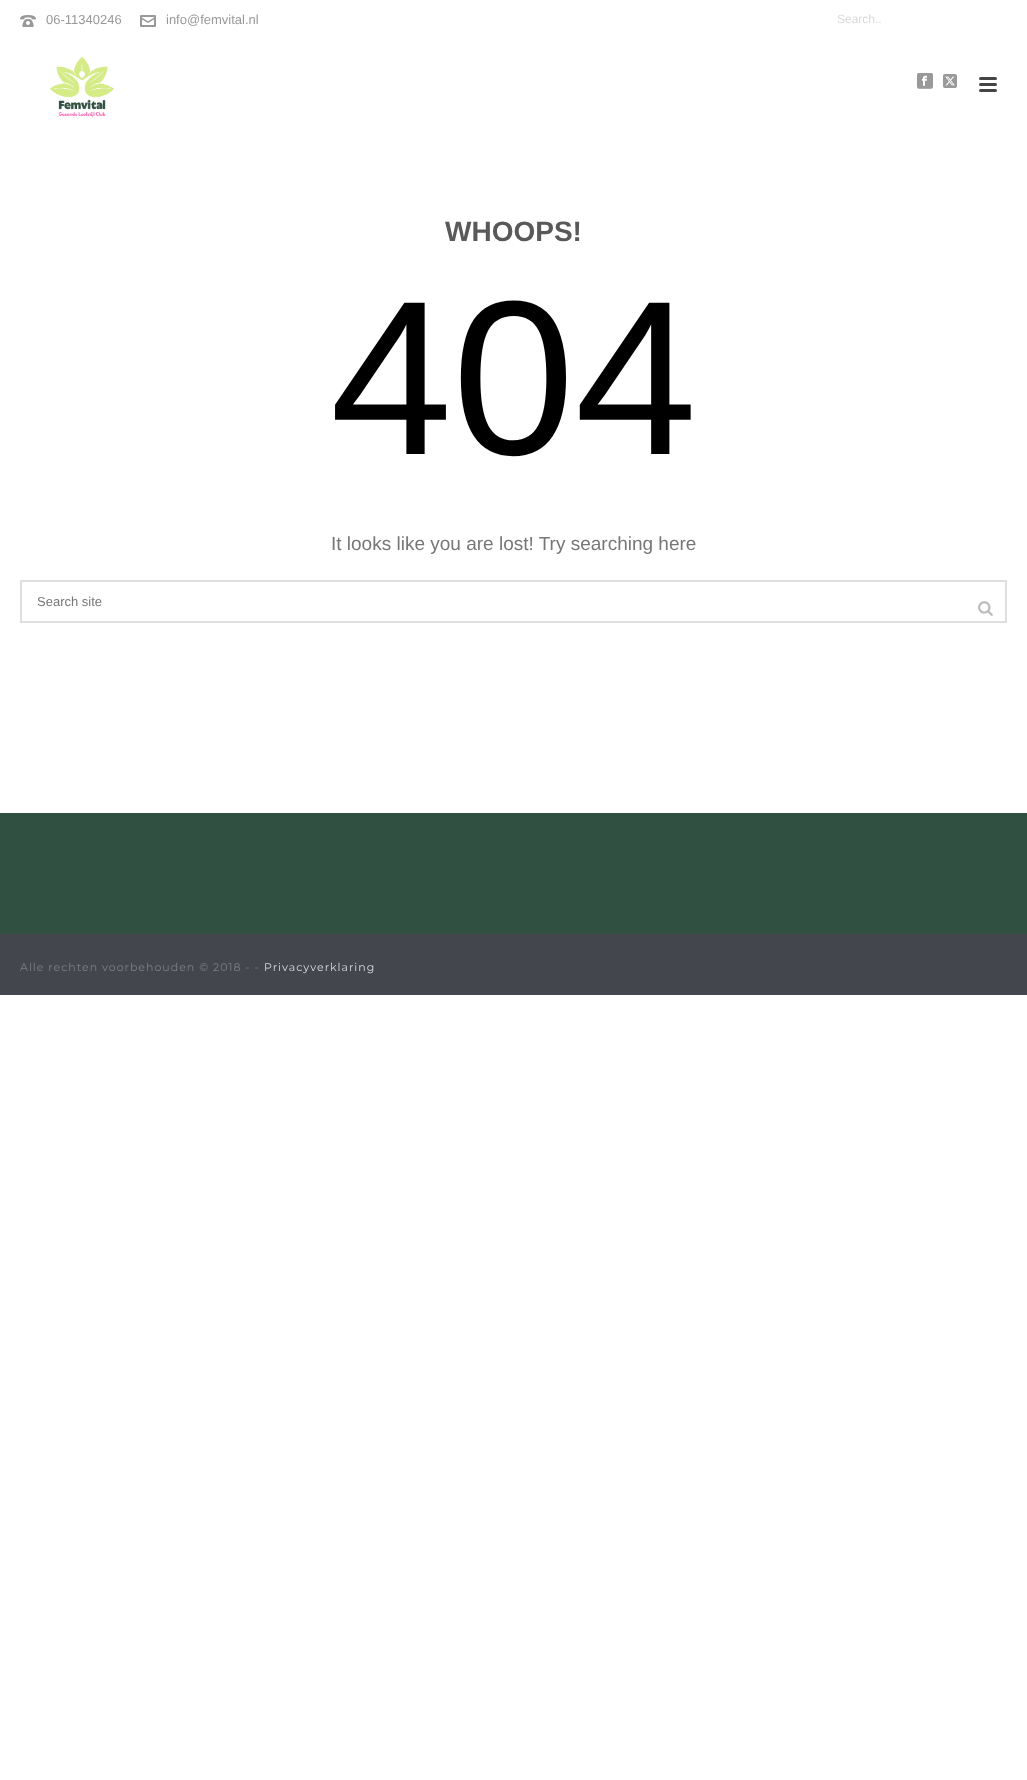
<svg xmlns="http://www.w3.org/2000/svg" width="1027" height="1780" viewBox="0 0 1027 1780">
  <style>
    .t1 { font: 13px Liberation Sans; fill: #999; }
    .t2 { font: 12px Liberation Sans; fill: #d9dadb; }
    .t3 { font: bold 28px Liberation Sans; fill: #595959; }
    .t4 { font: 220px Liberation Sans; fill: #000; }
    .t5 { font: 19px Liberation Sans; fill: #777; }
    .t6 { font: 13px Liberation Sans; fill: #777; }
    .t7 { font: 11px Montserrat; letter-spacing: 1px; fill: #7d8083; }
    .t8 { font: 11px Montserrat; letter-spacing: 1px; fill: #d9dadb; }
  </style>
  <rect width="100%" height="100%" fill="#fff"/>
  <image x="20" y="15" width="16" height="12" href="images/1.png"/>
  <text x="46" y="24" class="t1">06-11340246</text>
  <image x="140" y="15" width="16" height="12" href="images/2.png"/>
  <text x="166" y="24" class="t1">info@femvital.nl</text>
  <text x="837" y="23" class="t2">Search..</text>
  <image x="50" y="56" width="65" height="62" href="images/3.png"/>
  <rect x="979" y="77" width="18" height="3" rx="1.5" fill="#444"/>
  <rect x="979" y="83" width="18" height="3" rx="1.5" fill="#444"/>
  <rect x="979" y="89" width="18" height="3" rx="1.5" fill="#444"/>
  <image x="917" y="73" width="16" height="16" href="images/4.png"/>
  <image x="943" y="74" width="14" height="14" href="images/5.png"/>
  <text x="445" y="241" class="t3">WHOOPS!</text>
  <text x="330" y="454" class="t4">404</text>
  <text x="331" y="550" class="t5">It looks like you are lost! Try searching here</text>
  <rect x="21" y="581" width="985" height="41" fill="none" stroke="#dfdfdf" stroke-width="2"/>
  <text x="37" y="606" class="t6">Search site</text>
  <image x="978" y="601" width="15" height="15" href="images/6.png"/>
  <rect x="0" y="813" width="1027" height="121" fill="#305041"/>
  <rect x="0" y="934" width="1027" height="61" fill="#43474d"/>
  <text x="20" y="971" class="t7">Alle rechten voorbehouden © 2018 - -</text>
  <text x="264" y="971" class="t8">Privacyverklaring</text>
</svg>
